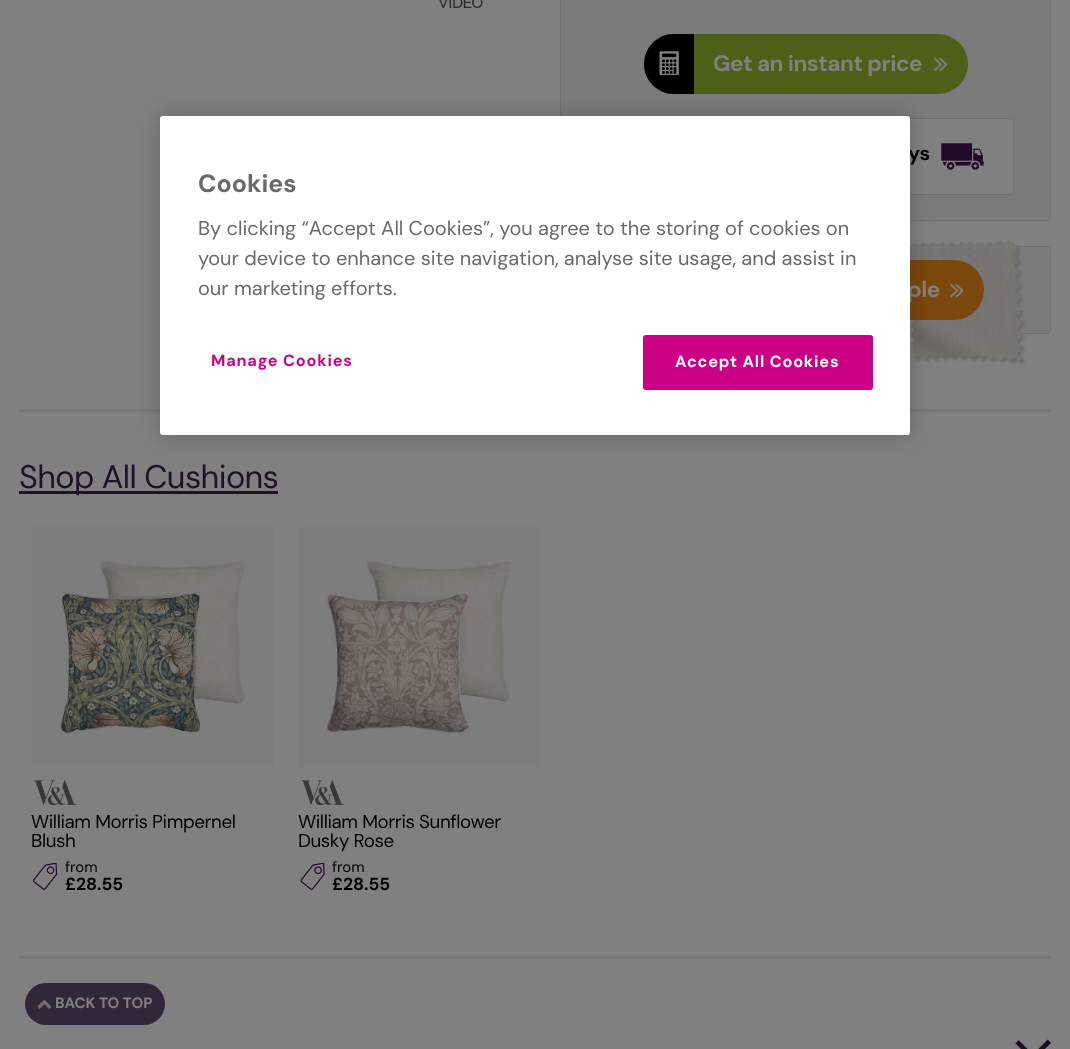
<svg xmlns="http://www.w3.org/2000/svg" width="1070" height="1049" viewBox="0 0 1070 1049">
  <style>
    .t1 { font: bold 15px Raleway; fill: #2c2c2b; }
    .t2 { font: bold 22.5px DM Sans; letter-spacing: -0.5px; fill: #808080; }
    .t3 { font: bold 20px DM Sans; fill: #000; }
    .t4 { font: 32.5px DM Sans; letter-spacing: -0.6px; fill: #1e1128; }
    .t5 { font: 18.75px DM Sans; letter-spacing: -0.4px; fill: #000; }
    .t6 { font: 15px DM Sans; fill: #000; }
    .t7 { font: bold 17.5px DM Sans; fill: #000; }
    .t8 { font: bold 25px DM Sans; fill: #696969; }
    .t9 { font: 20px DM Sans; fill: #696969; }
    .t10 { font: bold 16.25px DM Sans; letter-spacing: 0.8px; fill: #cb0084; }
    .t11 { font: bold 16.25px DM Sans; letter-spacing: 0.8px; fill: #fff; }
    .t12 { font: bold 15px DM Sans; fill: #808080; }
  </style>
  <rect width="100%" height="100%" fill="#808080"/>
  <text x="438" y="8" class="t1">VIDEO</text>
  <rect x="560.5" y="-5.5" width="490" height="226" rx="4.5" fill="#7c7b7c" stroke="#6f7072"/>
  <rect x="644" y="34" width="324" height="60" rx="30" fill="#4e5f17"/>
  <path d="M674 34H694V94H674C657.5 94 644 80.5 644 64C644 47.5 657.5 34 674 34Z" fill="#000"/>
  <image x="659" y="51" width="20" height="24" href="images/1.png"/>
  <text x="713" y="71" class="t2">Get an instant price</text>
  <image x="933" y="57" width="15" height="15" href="images/2.png"/>
  <rect x="598.5" y="118.5" width="415" height="76" rx="4.5" fill="#808080" stroke="#6f7072"/>
  <text x="908" y="160" class="t3">ys</text>
  <image x="941" y="143" width="43" height="27" href="images/3.png"/>
  <rect x="560.5" y="246.5" width="490" height="87" rx="4.5" fill="#7c7b7c" stroke="#6f7072"/>
  <image x="910" y="241" width="116" height="124" href="images/4.png"/>
  <rect x="628" y="260" width="356" height="60" rx="30" fill="#7a470c"/>
  <text x="907" y="297" class="t2">ple</text>
  <image x="950" y="283" width="14" height="15" href="images/5.png"/>
  <rect x="19" y="409" width="1032" height="3" fill="#777"/>
  <rect x="19" y="491" width="259" height="3" fill="#1e1128"/>
  <text x="19" y="488" class="t4">Shop All Cushions</text>
  <image x="32" y="527" width="241" height="240" href="images/6.png"/>
  <image x="33" y="780" width="44" height="25" href="images/7.png"/>
  <text x="31" y="828" class="t5">William Morris Pimpernel</text>
  <text x="31" y="847" class="t5">Blush</text>
  <image x="32" y="863" width="26" height="27" href="images/8.png"/>
  <text x="65" y="872" class="t6">from</text>
  <text x="65" y="890" class="t7">£28.55</text>
  <image x="299" y="527" width="241" height="240" href="images/9.png"/>
  <image x="300" y="780" width="45" height="25" href="images/10.png"/>
  <text x="298" y="828" class="t5">William Morris Sunflower</text>
  <text x="298" y="847" class="t5">Dusky Rose</text>
  <image x="300" y="863" width="25" height="27" href="images/11.png"/>
  <text x="332" y="872" class="t6">from</text>
  <text x="332" y="890" class="t7">£28.55</text>
  <rect x="19" y="956" width="1032" height="3" fill="#777"/>
  <image x="1015" y="1039" width="36" height="10" href="images/12.png"/>
  <rect x="160" y="116" width="750" height="319" rx="3" fill="#00000033" filter="blur(11px)"/>
  <rect x="160" y="116" width="750" height="319" rx="3" fill="#fff"/>
  <text x="198" y="192" class="t8">Cookies</text>
  <text x="198" y="235" class="t9">By clicking “Accept All Cookies”, you agree to the storing of cookies on</text>
  <text x="198" y="265" class="t9">your device to enhance site navigation, analyse site usage, and assist in</text>
  <text x="198" y="295" class="t9">our marketing efforts.</text>
  <text x="211" y="366" class="t10">Manage Cookies</text>
  <rect x="643.5" y="335.5" width="229" height="54" rx="2" fill="#cb0084" stroke="#cb0084"/>
  <text x="675" y="367" class="t11">Accept All Cookies</text>
  <rect x="25" y="983" width="140" height="42" rx="21" fill="#312739"/>
  <image x="38" y="1000" width="13" height="9" href="images/13.png"/>
  <text x="55" y="1008" class="t12">BACK TO TOP</text>
</svg>
